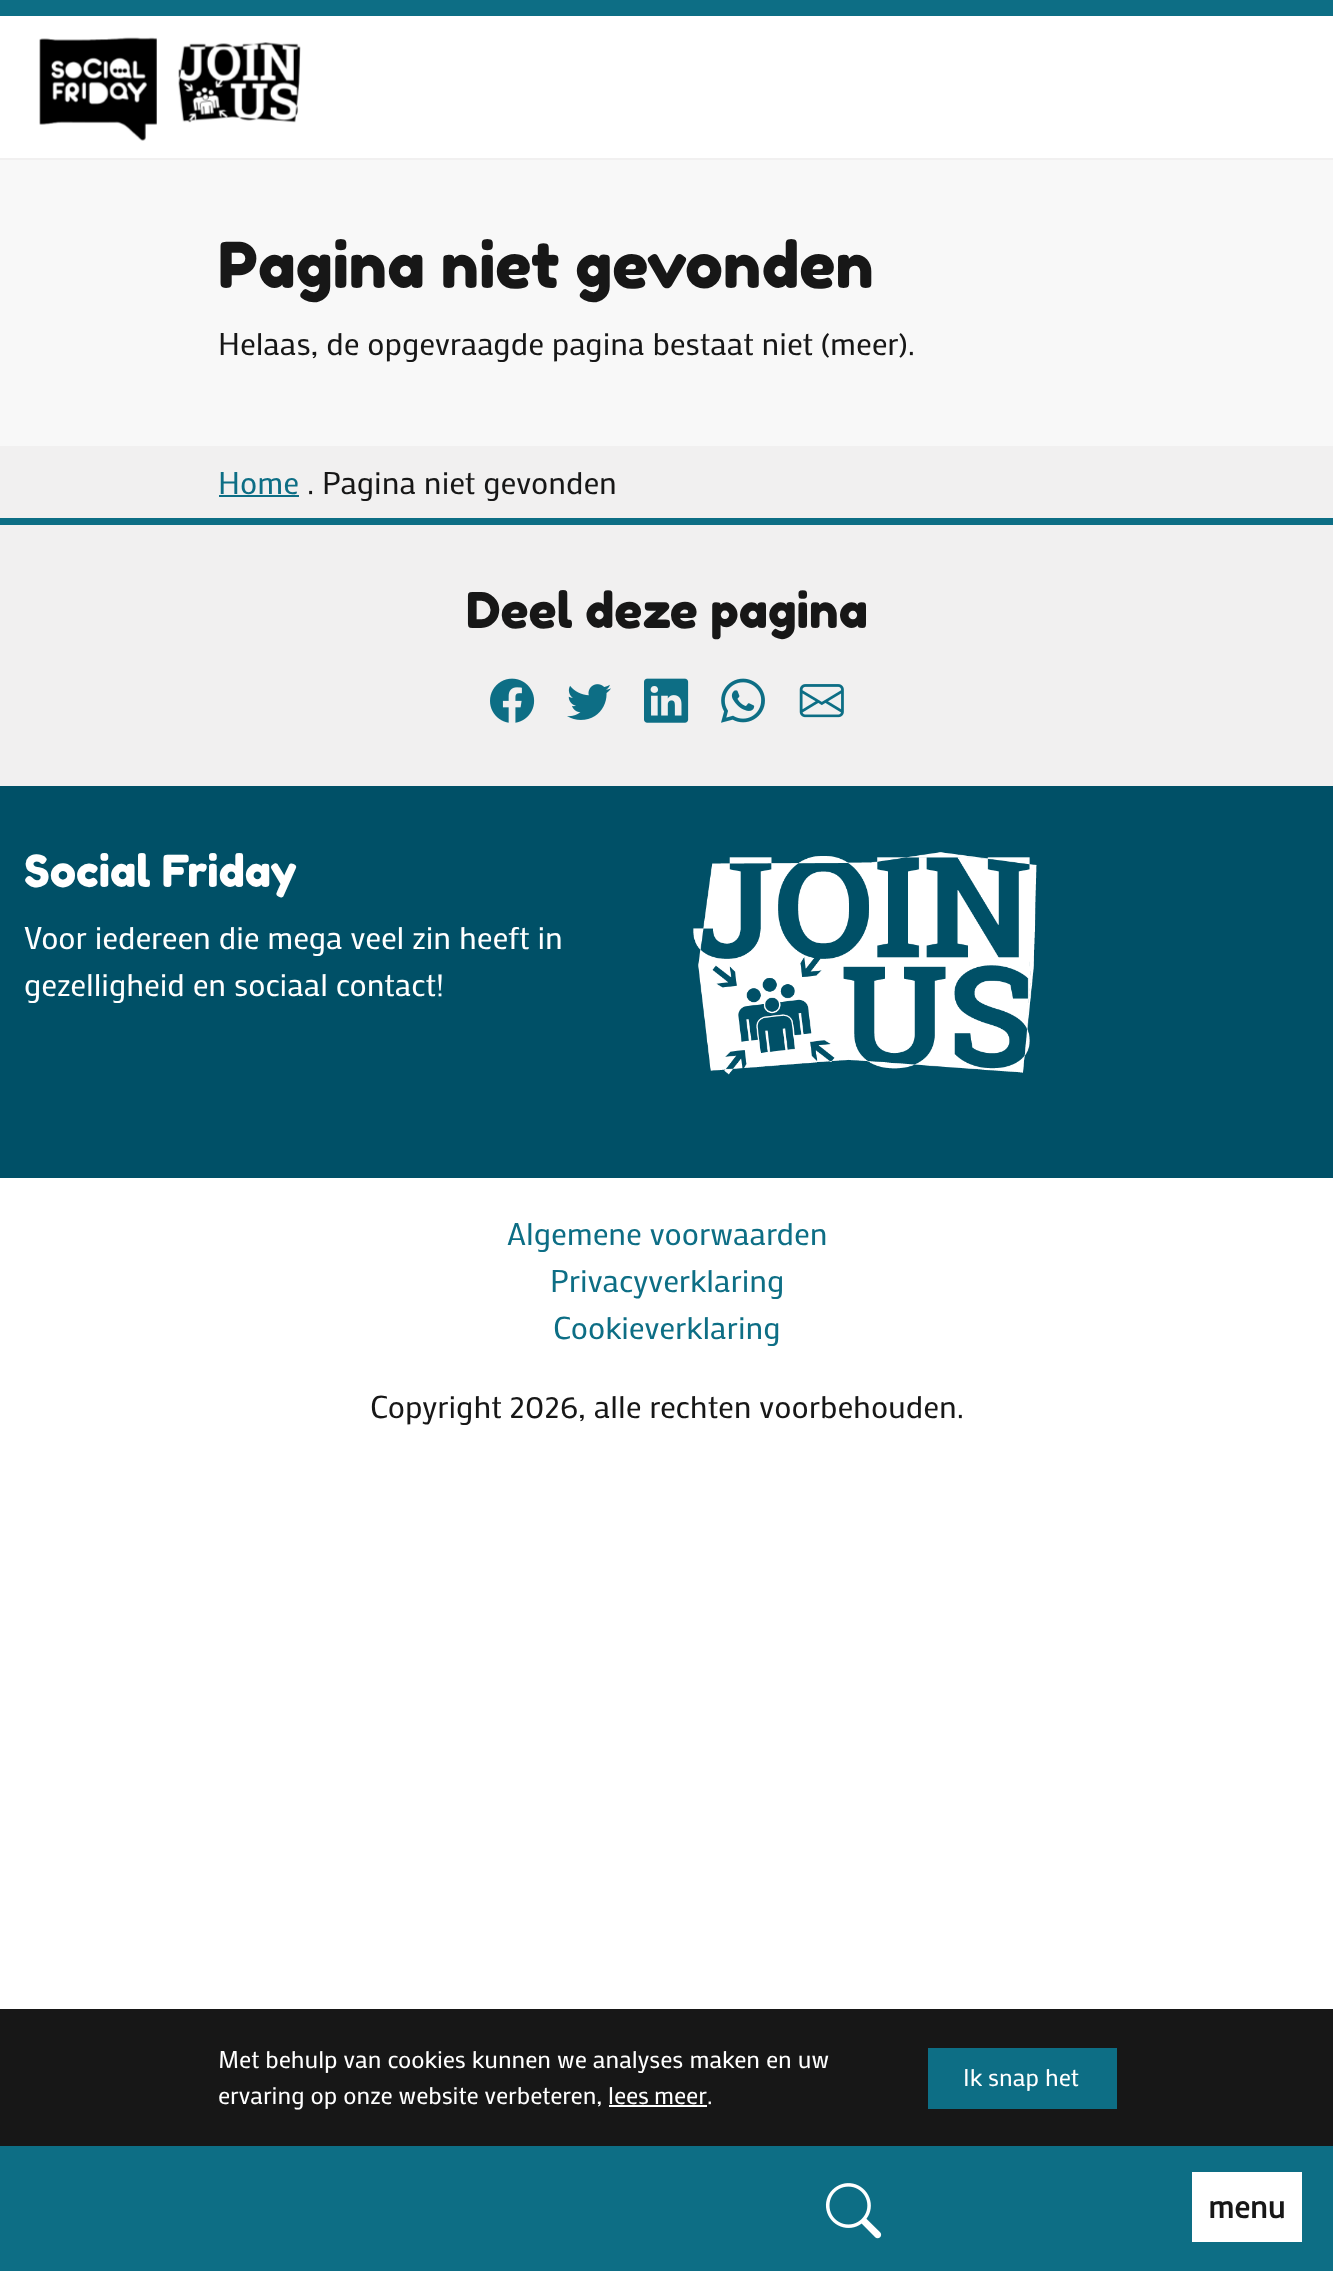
<svg xmlns="http://www.w3.org/2000/svg" width="1333" height="2271" viewBox="0 0 1333 2271">
  <style>
    .t1 { font: 63.25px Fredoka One; fill: #171717; }
    .t2 { font: 31.5px Mako; fill: #171717; }
    .t3 { font: 31.5px Mako; fill: #0d6e85; }
    .t4 { font: 49px Fredoka One; fill: #171717; }
    .t5 { font: 44px Fredoka One; fill: #fff; }
    .t6 { font: 31.5px Mako; fill: #fff; }
    .t7 { font: 24.25px Mako; fill: #fff; }
    .t8 { font: bold 31.5px Mako; fill: #171717; }
  </style>
  <rect width="100%" height="100%" fill="#fff"/>
  <rect x="0" y="0" width="1333" height="16" fill="#0d6e85"/>
  <rect x="0" y="158" width="1333" height="2" fill="#f1f0f0"/>
  <image x="39" y="37" width="262" height="104" href="images/1.png"/>
  <rect x="0" y="160" width="1333" height="286" fill="#f8f8f8"/>
  <text x="218" y="288" class="t1">Pagina niet gevonden</text>
  <text x="218" y="355" class="t2">Helaas, de opgevraagde pagina bestaat niet (meer).</text>
  <rect x="0" y="446" width="1333" height="72" fill="#f1f0f0"/>
  <text x="218" y="494" class="t3">Home</text>
  <rect x="219" y="495" width="80" height="2" fill="#0d6e85"/>
  <text x="307" y="494" class="t2">. Pagina niet gevonden</text>
  <rect x="0" y="525" width="1333" height="261" fill="#f1f0f0"/>
  <rect x="0" y="518" width="1333" height="7" fill="#0d6e85"/>
  <text x="466" y="628" class="t4">Deel deze pagina</text>
  <image x="490" y="678" width="45" height="45" href="images/2.png"/>
  <image x="567" y="684" width="44" height="36" href="images/3.png"/>
  <image x="644" y="678" width="45" height="45" href="images/4.png"/>
  <image x="721" y="678" width="44" height="45" href="images/5.png"/>
  <image x="799" y="684" width="45" height="34" href="images/6.png"/>
  <rect x="0" y="786" width="1333" height="392" fill="#005067"/>
  <text x="24" y="887" class="t5">Social Friday</text>
  <text x="24" y="949" class="t6">Voor iedereen die mega veel zin heeft in</text>
  <text x="24" y="996" class="t6">gezelligheid en sociaal contact!</text>
  <image x="693" y="852" width="344" height="223" href="images/7.png"/>
  <text x="507" y="1245" class="t3">Algemene voorwaarden</text>
  <text x="550" y="1292" class="t3">Privacyverklaring</text>
  <text x="553" y="1339" class="t3">Cookieverklaring</text>
  <text x="370" y="1418" class="t2">Copyright 2026, alle rechten voorbehouden.</text>
  <rect x="0" y="2009" width="1333" height="137" fill="#171717"/>
  <text x="218" y="2068" class="t7">Met behulp van cookies kunnen we analyses maken en uw</text>
  <text x="218" y="2104" class="t7">ervaring op onze website verbeteren,</text>
  <text x="608" y="2104" word-spacing="-1" class="t7">lees meer</text>
  <rect x="609" y="2105" width="98" height="2" fill="#fff"/>
  <text x="707" y="2104" class="t7">.</text>
  <rect x="928" y="2048" width="189" height="61" fill="#0d6e85"/>
  <text x="963" y="2086" class="t7">Ik snap het</text>
  <rect x="0" y="2146" width="1333" height="125" fill="#0d6e85"/>
  <image x="825" y="2183" width="57" height="56" href="images/8.png"/>
  <rect x="1192" y="2172" width="110" height="70" fill="#fff"/>
  <text x="1208" y="2218" class="t8">menu</text>
</svg>
